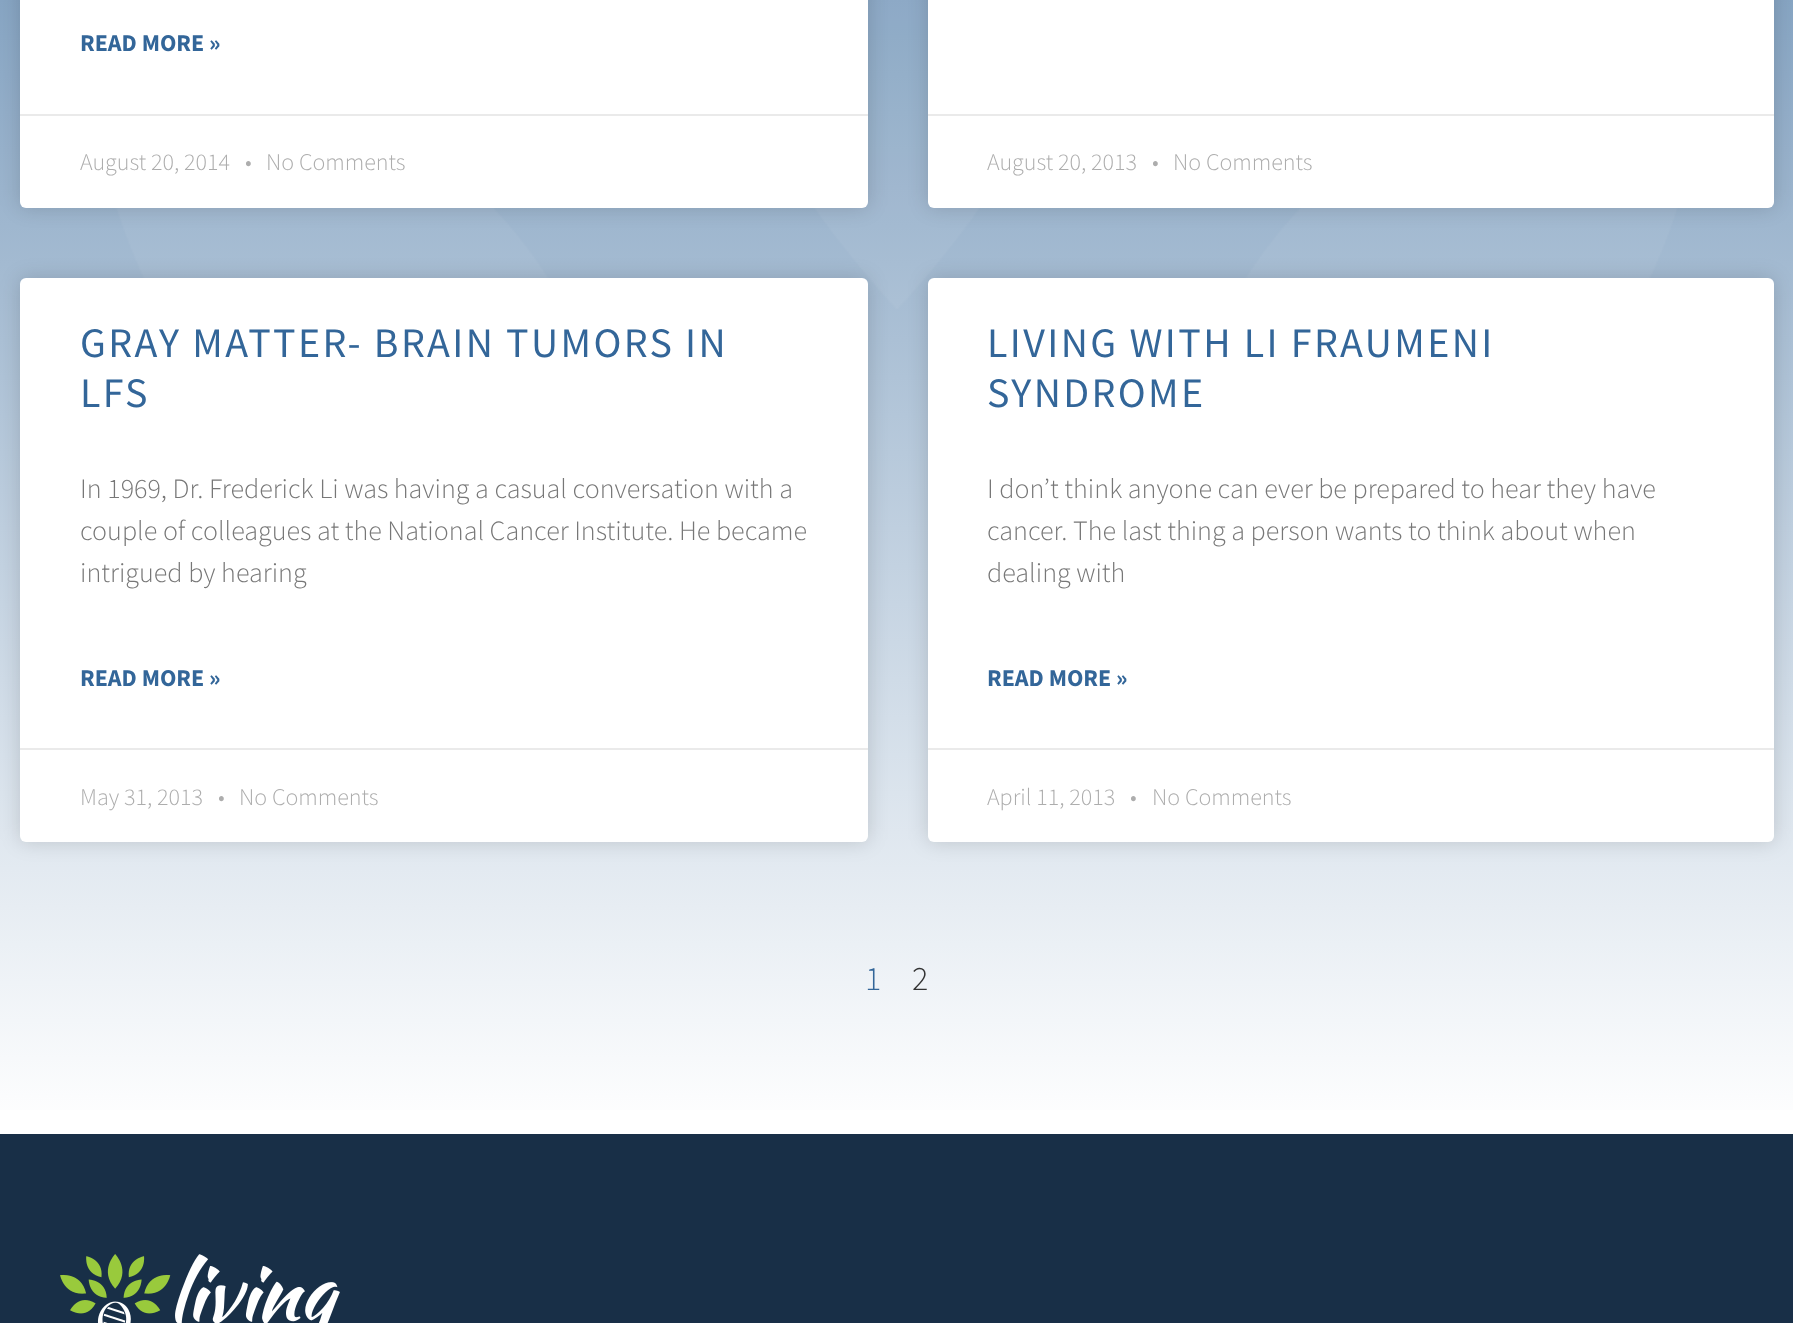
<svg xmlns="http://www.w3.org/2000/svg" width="1793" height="1323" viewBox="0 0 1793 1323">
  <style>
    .t1 { font: bold 24px Source Sans Pro; fill: #369; }
    .t2 { font: 300 24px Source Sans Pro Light; fill: #adadad; }
    .t3 { font: 42px Source Sans Pro; letter-spacing: 2.4px; fill: #369; }
    .t4 { font: 300 28px Source Sans Pro Light; fill: #777; }
    .t5 { font: 300 34px Source Sans Pro Light; fill: #369; }
    .t6 { font: 300 34px Source Sans Pro Light; fill: #333; }
  </style>
  <defs>
    <linearGradient id="g1" gradientUnits="userSpaceOnUse" x1="897" y1="-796" x2="897" y2="1134"><stop offset="0" stop-color="#369"/><stop offset="1" stop-color="#fff"/></linearGradient>
  </defs>
  <rect width="100%" height="100%" fill="#fff"/>
  <rect x="0" y="0" width="1793" height="1110" fill="url(#g1)"/>
  <image x="116" y="0" width="1562" height="309" href="images/1.png"/>
  <rect x="20" y="-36" width="848" height="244" rx="6" fill="#00000026" filter="blur(10px)"/>
  <rect x="20" y="-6" width="848" height="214" rx="6" fill="#fff"/>
  <text x="80" y="51" class="t1">READ MORE »</text>
  <rect x="20" y="114" width="848" height="2" fill="#eaeaea"/>
  <text x="80" y="170" class="t2">August 20, 2014</text>
  <text x="245" y="170" class="t2">•</text>
  <text x="266" y="170" class="t2">No Comments</text>
  <rect x="928" y="-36" width="846" height="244" rx="6" fill="#00000026" filter="blur(10px)"/>
  <rect x="928" y="-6" width="846" height="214" rx="6" fill="#fff"/>
  <rect x="928" y="114" width="846" height="2" fill="#eaeaea"/>
  <text x="987" y="170" class="t2">August 20, 2013</text>
  <text x="1152" y="170" class="t2">•</text>
  <text x="1173" y="170" class="t2">No Comments</text>
  <rect x="20" y="278" width="848" height="564" rx="6" fill="#00000026" filter="blur(10px)"/>
  <rect x="20" y="278" width="848" height="564" rx="6" fill="#fff"/>
  <text x="80" y="357" class="t3">GRAY MATTER- BRAIN TUMORS IN</text>
  <text x="80" y="407" class="t3">LFS</text>
  <text x="80" y="498" class="t4">In 1969, Dr. Frederick Li was having a casual conversation with a</text>
  <text x="80" y="540" class="t4">couple of colleagues at the National Cancer Institute. He became</text>
  <text x="80" y="582" class="t4">intrigued by hearing</text>
  <text x="80" y="686" class="t1">READ MORE »</text>
  <rect x="20" y="748" width="848" height="2" fill="#eaeaea"/>
  <text x="80" y="805" class="t2">May 31, 2013</text>
  <text x="218" y="805" class="t2">•</text>
  <text x="239" y="805" class="t2">No Comments</text>
  <rect x="928" y="278" width="846" height="564" rx="6" fill="#00000026" filter="blur(10px)"/>
  <rect x="928" y="278" width="846" height="564" rx="6" fill="#fff"/>
  <text x="987" y="357" class="t3">LIVING WITH LI FRAUMENI</text>
  <text x="987" y="407" class="t3">SYNDROME</text>
  <text x="987" y="498" class="t4">I don’t think anyone can ever be prepared to hear they have</text>
  <text x="987" y="540" class="t4">cancer. The last thing a person wants to think about when</text>
  <text x="987" y="582" class="t4">dealing with</text>
  <text x="987" y="686" class="t1">READ MORE »</text>
  <rect x="928" y="748" width="846" height="2" fill="#eaeaea"/>
  <text x="987" y="805" class="t2">April 11, 2013</text>
  <text x="1130" y="805" class="t2">•</text>
  <text x="1152" y="805" class="t2">No Comments</text>
  <text x="865" y="990" class="t5">1</text>
  <text x="912" y="990" class="t6">2</text>
  <rect x="0" y="1134" width="1793" height="189" fill="#182f47"/>
  <image x="60" y="1254" width="280" height="69" href="images/2.png"/>
</svg>
